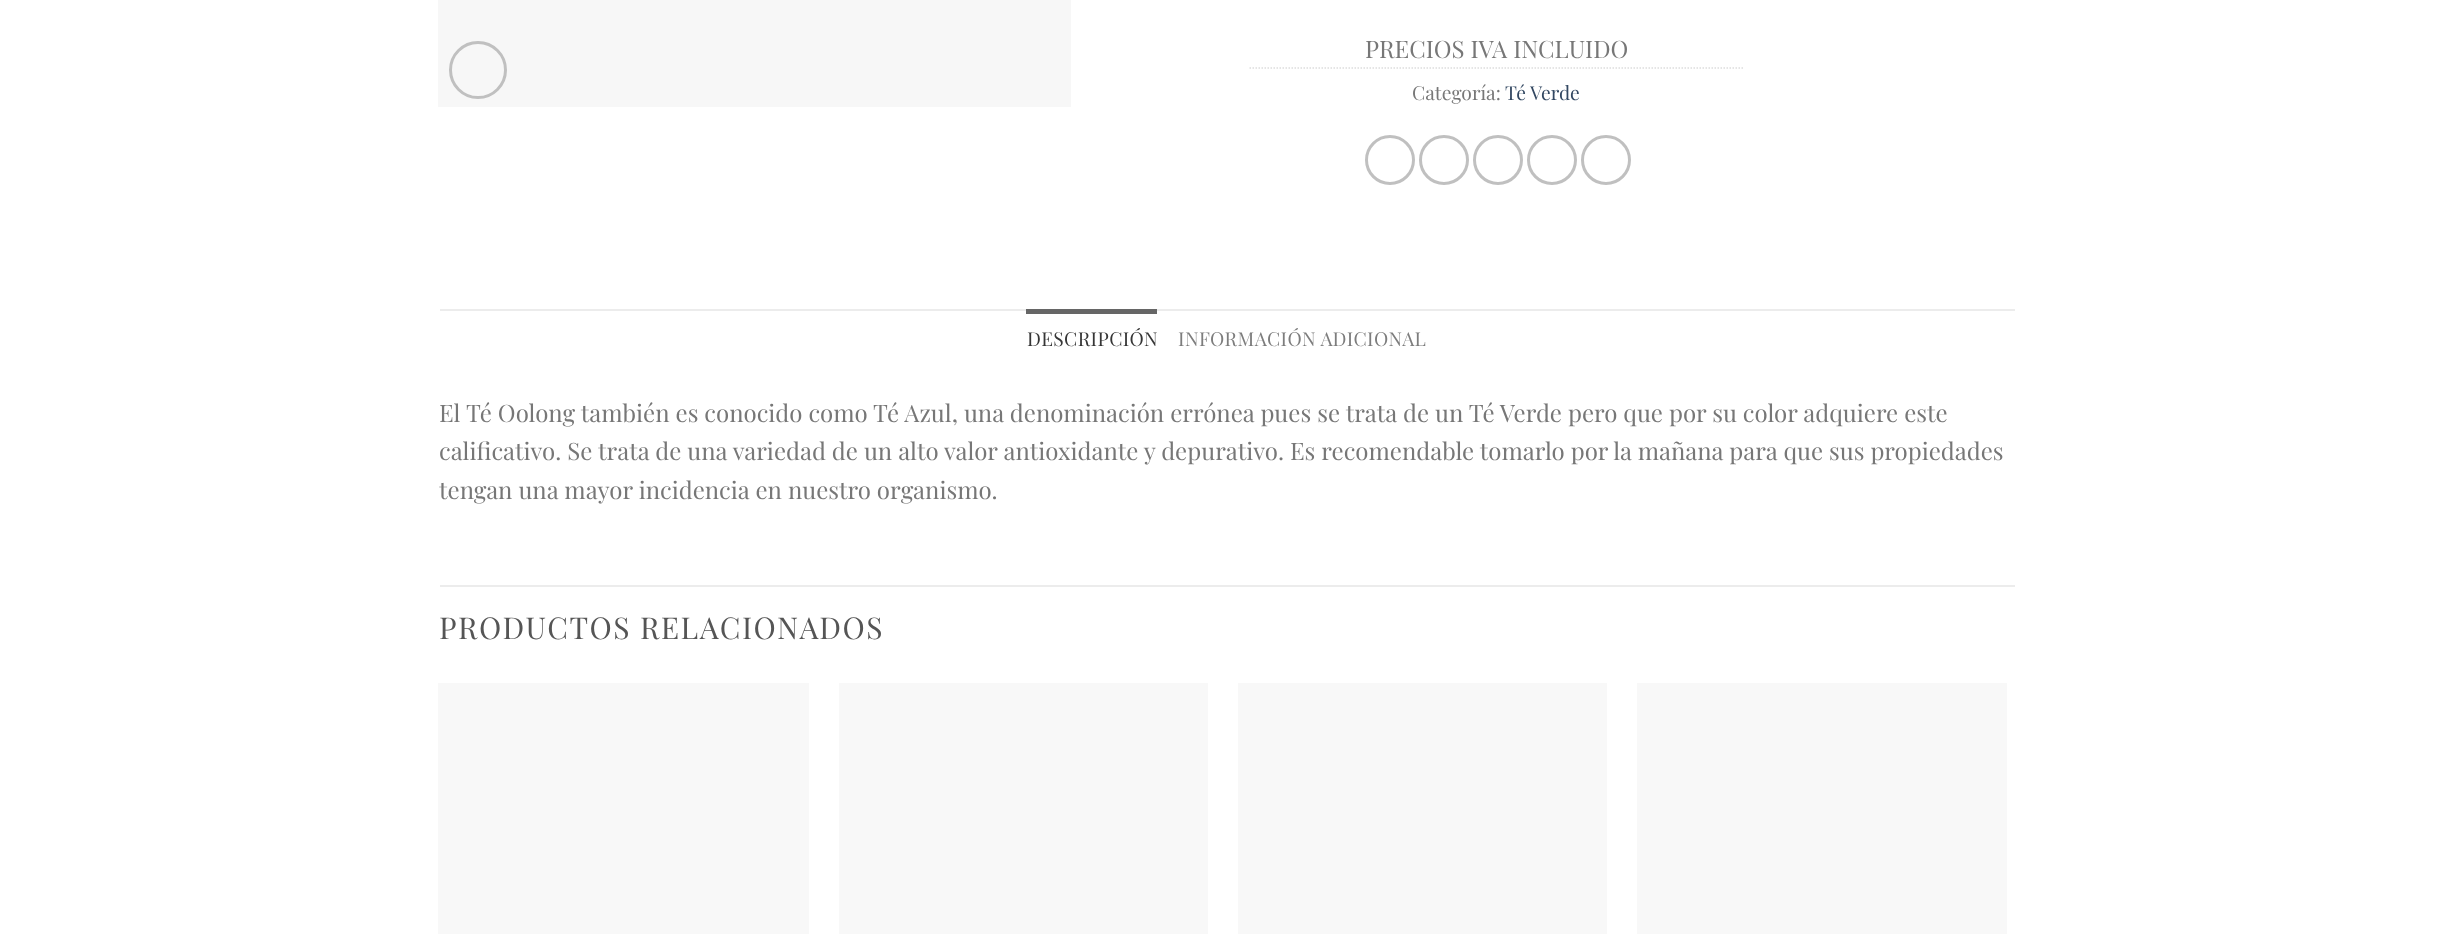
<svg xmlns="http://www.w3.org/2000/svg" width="2452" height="934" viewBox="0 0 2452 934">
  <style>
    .t1 { font: 24px Playfair Display; fill: #777; }
    .t2 { font: 19.25px Playfair Display; fill: #777; }
    .t3 { font: 19.25px Playfair Display; fill: #334862; }
    .t4 { font: 19.25px Playfair Display; letter-spacing: 0.4px; fill: #363636; }
    .t5 { font: 19.25px Playfair Display; letter-spacing: 0.4px; fill: #7d7d7d; }
    .t6 { font: 30px Playfair Display; letter-spacing: 1.5px; fill: #555; }
  </style>
  <rect width="100%" height="100%" fill="#fff"/>
  <rect x="438" y="0" width="633" height="107" fill="#f7f7f7"/>
  <circle cx="478" cy="70" r="27.5" fill="none" stroke="#c0c0c0" stroke-width="3"/>
  <text x="1365" y="58" class="t1">PRECIOS IVA INCLUIDO</text>
  <path d="M1249.5 68H1744.5" fill="none" stroke="#ddd" stroke-width="1.5" stroke-dasharray="1.5 1.5"/>
  <text x="1412" y="100" class="t2">Categoría:</text>
  <text x="1505" y="100" class="t3">Té Verde</text>
  <circle cx="1390" cy="160" r="23.5" fill="none" stroke="#c0c0c0" stroke-width="3"/>
  <circle cx="1444" cy="160" r="23.5" fill="none" stroke="#c0c0c0" stroke-width="3"/>
  <circle cx="1498" cy="160" r="23.5" fill="none" stroke="#c0c0c0" stroke-width="3"/>
  <circle cx="1552" cy="160" r="23.5" fill="none" stroke="#c0c0c0" stroke-width="3"/>
  <circle cx="1606" cy="160" r="23.5" fill="none" stroke="#c0c0c0" stroke-width="3"/>
  <rect x="440" y="309" width="1575" height="2" fill="#ececec"/>
  <rect x="1026" y="309" width="131" height="5" fill="#666"/>
  <text x="1027" y="346" class="t4">DESCRIPCIÓN</text>
  <text x="1178" y="346" class="t5">INFORMACIÓN ADICIONAL</text>
  <text x="439" y="422" class="t1">El Té Oolong también es conocido como Té Azul, una denominación errónea pues se trata de un Té Verde pero que por su color adquiere este</text>
  <text x="439" y="460" class="t1">calificativo. Se trata de una variedad de un alto valor antioxidante y depurativo. Es recomendable tomarlo por la mañana para que sus propiedades</text>
  <text x="439" y="499" class="t1">tengan una mayor incidencia en nuestro organismo.</text>
  <rect x="440" y="585" width="1575" height="2" fill="#ececec"/>
  <text x="439" y="639" class="t6">PRODUCTOS RELACIONADOS</text>
  <rect x="438" y="683" width="371" height="251" fill="#f8f8f8"/>
  <rect x="839" y="683" width="369" height="251" fill="#f8f8f8"/>
  <rect x="1238" y="683" width="369" height="251" fill="#f8f8f8"/>
  <rect x="1637" y="683" width="370" height="251" fill="#f8f8f8"/>
</svg>
